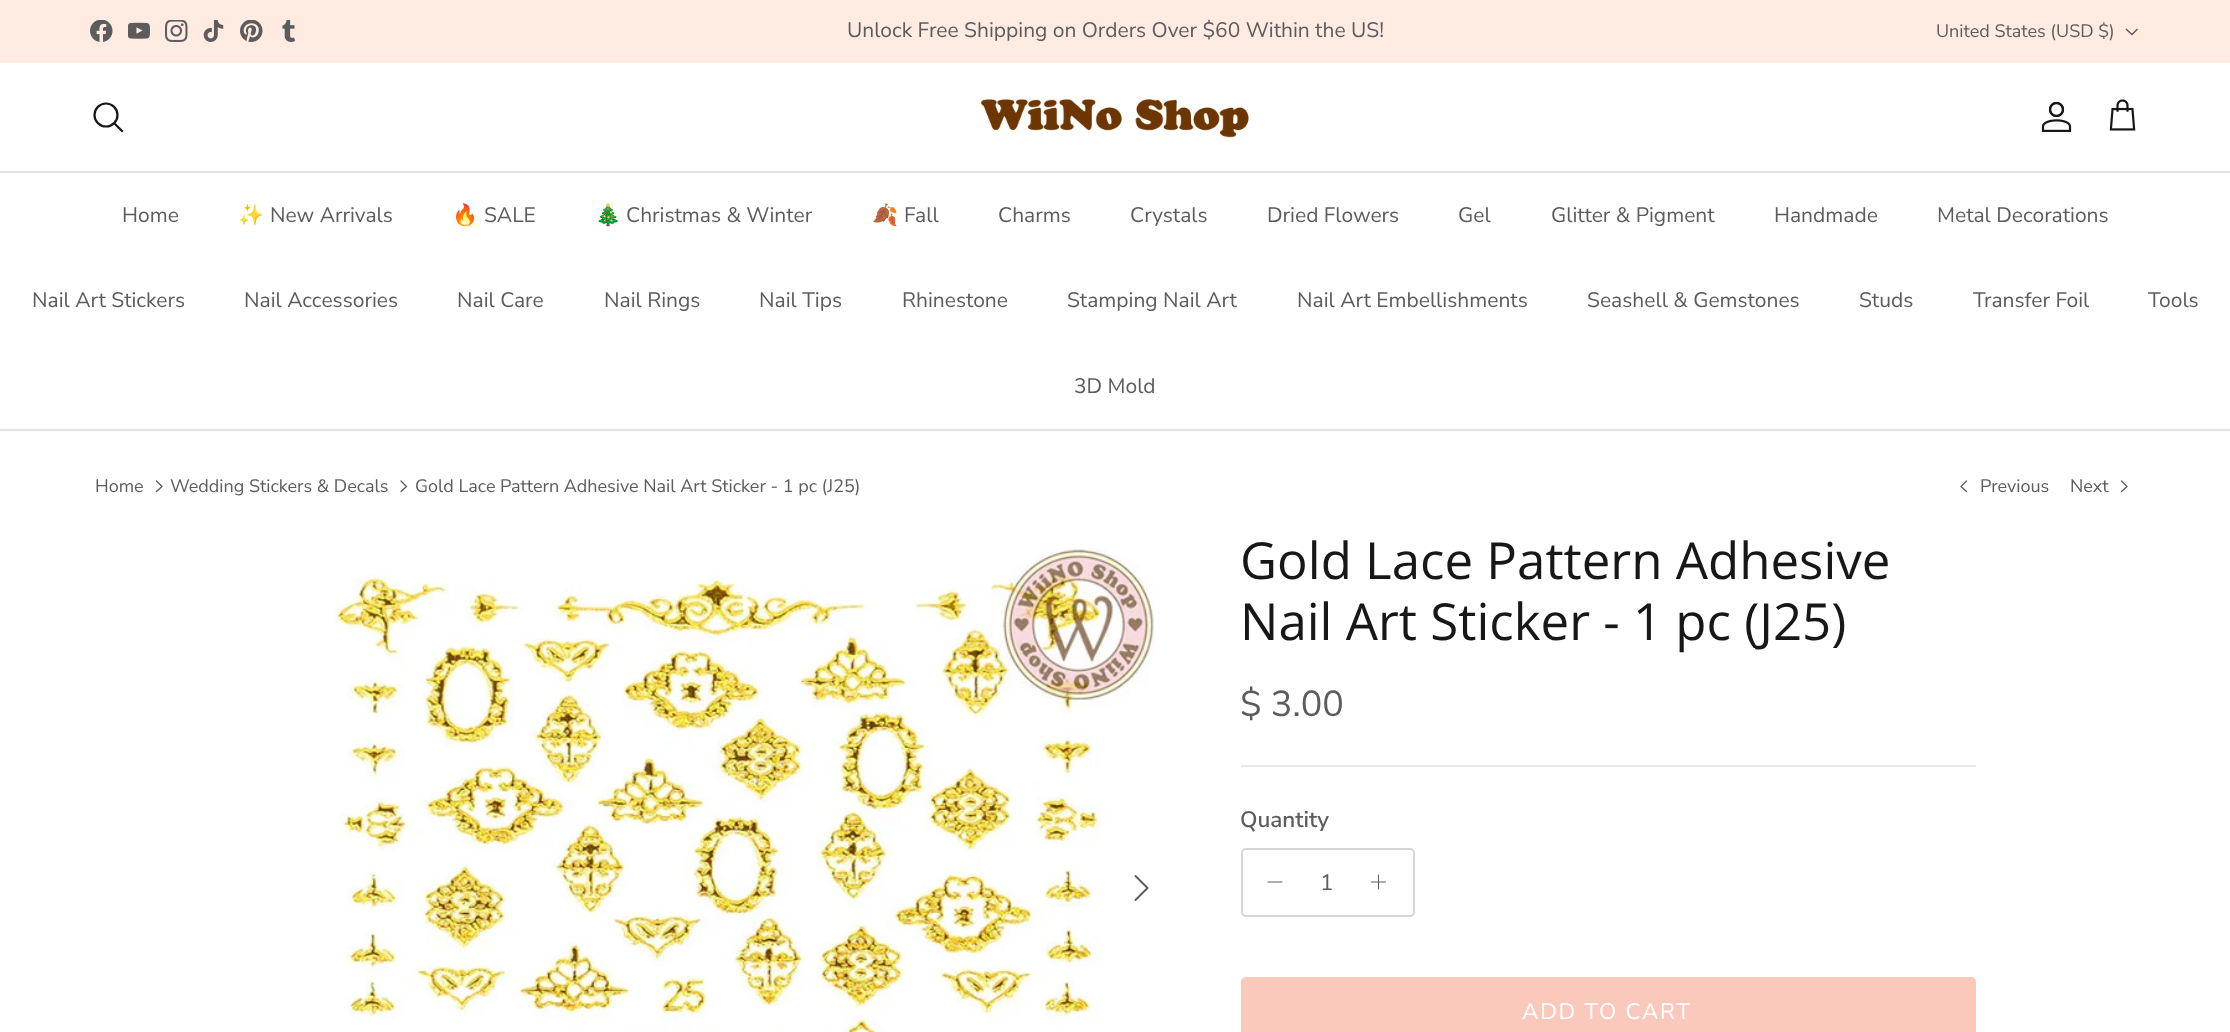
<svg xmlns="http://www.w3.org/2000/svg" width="2230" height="1032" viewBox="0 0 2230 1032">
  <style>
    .t1 { font: 21px Nunito Sans; fill: #5c5c5c; }
    .t2 { font: 18px Nunito Sans; fill: #5c5c5c; }
    .t3 { font: 21px Noto Color Emoji; fill: #5c5c5c; }
    .t4 { font: 51px Open Sans; fill: #171717; }
    .t5 { font: 36px Nunito Sans; fill: #5c5c5c; }
    .t6 { font: 600 22.5px Nunito Sans; fill: #5c5c5c; }
    .t7 { font: 22.5px Nunito Sans; fill: #5c5c5c; }
    .t8 { font: 22.5px Nunito Sans; letter-spacing: 1.75px; fill: #fff; }
  </style>
  <rect width="100%" height="100%" fill="#fff"/>
  <rect x="0" y="0" width="2230" height="63" fill="#ffebe1"/>
  <image x="90" y="20" width="23" height="22" href="images/1.png"/>
  <image x="128" y="22" width="22" height="17" href="images/2.png"/>
  <image x="165" y="20" width="23" height="22" href="images/3.png"/>
  <image x="203" y="20" width="21" height="22" href="images/4.png"/>
  <image x="240" y="20" width="23" height="22" href="images/5.png"/>
  <image x="282" y="20" width="13" height="22" href="images/6.png"/>
  <text x="847" y="37" class="t1">Unlock Free Shipping on Orders Over $60 Within the US!</text>
  <text x="1936" y="37" class="t2">United States (USD $)</text>
  <path d="M2137.5 29L2132 34.5L2126 29" fill="none" stroke="#5c5c5c" stroke-width="1.5"/>
  <rect x="0" y="171" width="2230" height="2" fill="#dfe3e8"/>
  <circle cx="106" cy="115" r="11.5" fill="none" stroke="#171717" stroke-width="2.2"/>
  <path d="M115.5 124.5L122 131" fill="none" stroke="#171717" stroke-width="2.2" stroke-linecap="square"/>
  <image x="981" y="99" width="268" height="39" href="images/7.png"/>
  <image x="2041" y="101" width="31" height="31" href="images/8.png"/>
  <image x="2109" y="99" width="27" height="32" href="images/9.png"/>
  <rect x="0" y="429" width="2230" height="2" fill="#dfe3e8"/>
  <text x="122" y="222" class="t1">Home</text>
  <text x="238" y="222" class="t3">✨</text>
  <text x="270" y="222" class="t1">New Arrivals</text>
  <text x="452" y="222" class="t3">🔥</text>
  <text x="484" y="222" class="t1">SALE</text>
  <text x="595" y="222" class="t3">🎄</text>
  <text x="626" y="222" class="t1">Christmas &amp; Winter</text>
  <text x="872" y="222" class="t3">🍂</text>
  <text x="904" y="222" class="t1">Fall</text>
  <text x="998" y="222" class="t1">Charms</text>
  <text x="1130" y="222" class="t1">Crystals</text>
  <text x="1267" y="222" class="t1">Dried Flowers</text>
  <text x="1458" y="222" class="t1">Gel</text>
  <text x="1551" y="222" class="t1">Glitter &amp; Pigment</text>
  <text x="1774" y="222" class="t1">Handmade</text>
  <text x="1937" y="222" class="t1">Metal Decorations</text>
  <text x="32" y="307" class="t1">Nail Art Stickers</text>
  <text x="244" y="307" class="t1">Nail Accessories</text>
  <text x="457" y="307" class="t1">Nail Care</text>
  <text x="604" y="307" class="t1">Nail Rings</text>
  <text x="759" y="307" class="t1">Nail Tips</text>
  <text x="902" y="307" class="t1">Rhinestone</text>
  <text x="1067" y="307" class="t1">Stamping Nail Art</text>
  <text x="1297" y="307" class="t1">Nail Art Embellishments</text>
  <text x="1587" y="307" class="t1">Seashell &amp; Gemstones</text>
  <text x="1859" y="307" class="t1">Studs</text>
  <text x="1973" y="307" class="t1">Transfer Foil</text>
  <text x="2148" y="307" class="t1">Tools</text>
  <text x="1074" y="393" class="t1">3D Mold</text>
  <text x="95" y="492" class="t2">Home</text>
  <path d="M156.5 491.5L162 486.5L156.5 481" fill="none" stroke="#5c5c5c" stroke-width="1.3" stroke-linecap="round" stroke-linejoin="round"/>
  <text x="170" y="492" class="t2">Wedding Stickers &amp; Decals</text>
  <path d="M401 491.5L406.5 486.5L401 481" fill="none" stroke="#5c5c5c" stroke-width="1.3" stroke-linecap="round" stroke-linejoin="round"/>
  <text x="415" y="492" class="t2">Gold Lace Pattern Adhesive Nail Art Sticker - 1 pc (J25)</text>
  <path d="M1966.5 491.5L1961 486.5L1966.5 481" fill="none" stroke="#5c5c5c" stroke-width="1.3" stroke-linecap="round" stroke-linejoin="round"/>
  <text x="1980" y="492" class="t2">Previous</text>
  <text x="2070" y="492" class="t2">Next</text>
  <path d="M2121.5 491.5L2127 486.5L2121.5 481" fill="none" stroke="#5c5c5c" stroke-width="1.3" stroke-linecap="round" stroke-linejoin="round"/>
  <image x="335" y="548" width="820" height="484" href="images/10.png"/>
  <path d="M1135.5 900L1147.5 888L1135.5 876" fill="none" stroke="#5c5c5c" stroke-width="2" stroke-linecap="round" stroke-linejoin="round"/>
  <text x="1240" y="579" class="t4">Gold Lace Pattern Adhesive</text>
  <text x="1240" y="640" class="t4">Nail Art Sticker - 1 pc (J25)</text>
  <text x="1240" y="716" class="t5">$ 3.00</text>
  <rect x="1241" y="765" width="735" height="2" fill="#e8e8e8"/>
  <text x="1240" y="827" class="t6">Quantity</text>
  <rect x="1242" y="849" width="172" height="67" rx="4" fill="none" stroke="#d6d6d6" stroke-width="2"/>
  <path d="M1268 882H1282" fill="none" stroke="#5c5c5c" stroke-linecap="round" stroke-linejoin="round"/>
  <text x="1320" y="890" class="t7">1</text>
  <path d="M1378.5 875V889M1371.5 882H1385.5" fill="none" stroke="#5c5c5c" stroke-linecap="round" stroke-linejoin="round"/>
  <rect x="1242" y="978" width="733" height="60" rx="4" fill="#fac9bc" stroke="#fac9bc" stroke-width="2"/>
  <text x="1522" y="1019" class="t8">ADD TO CART</text>
</svg>
